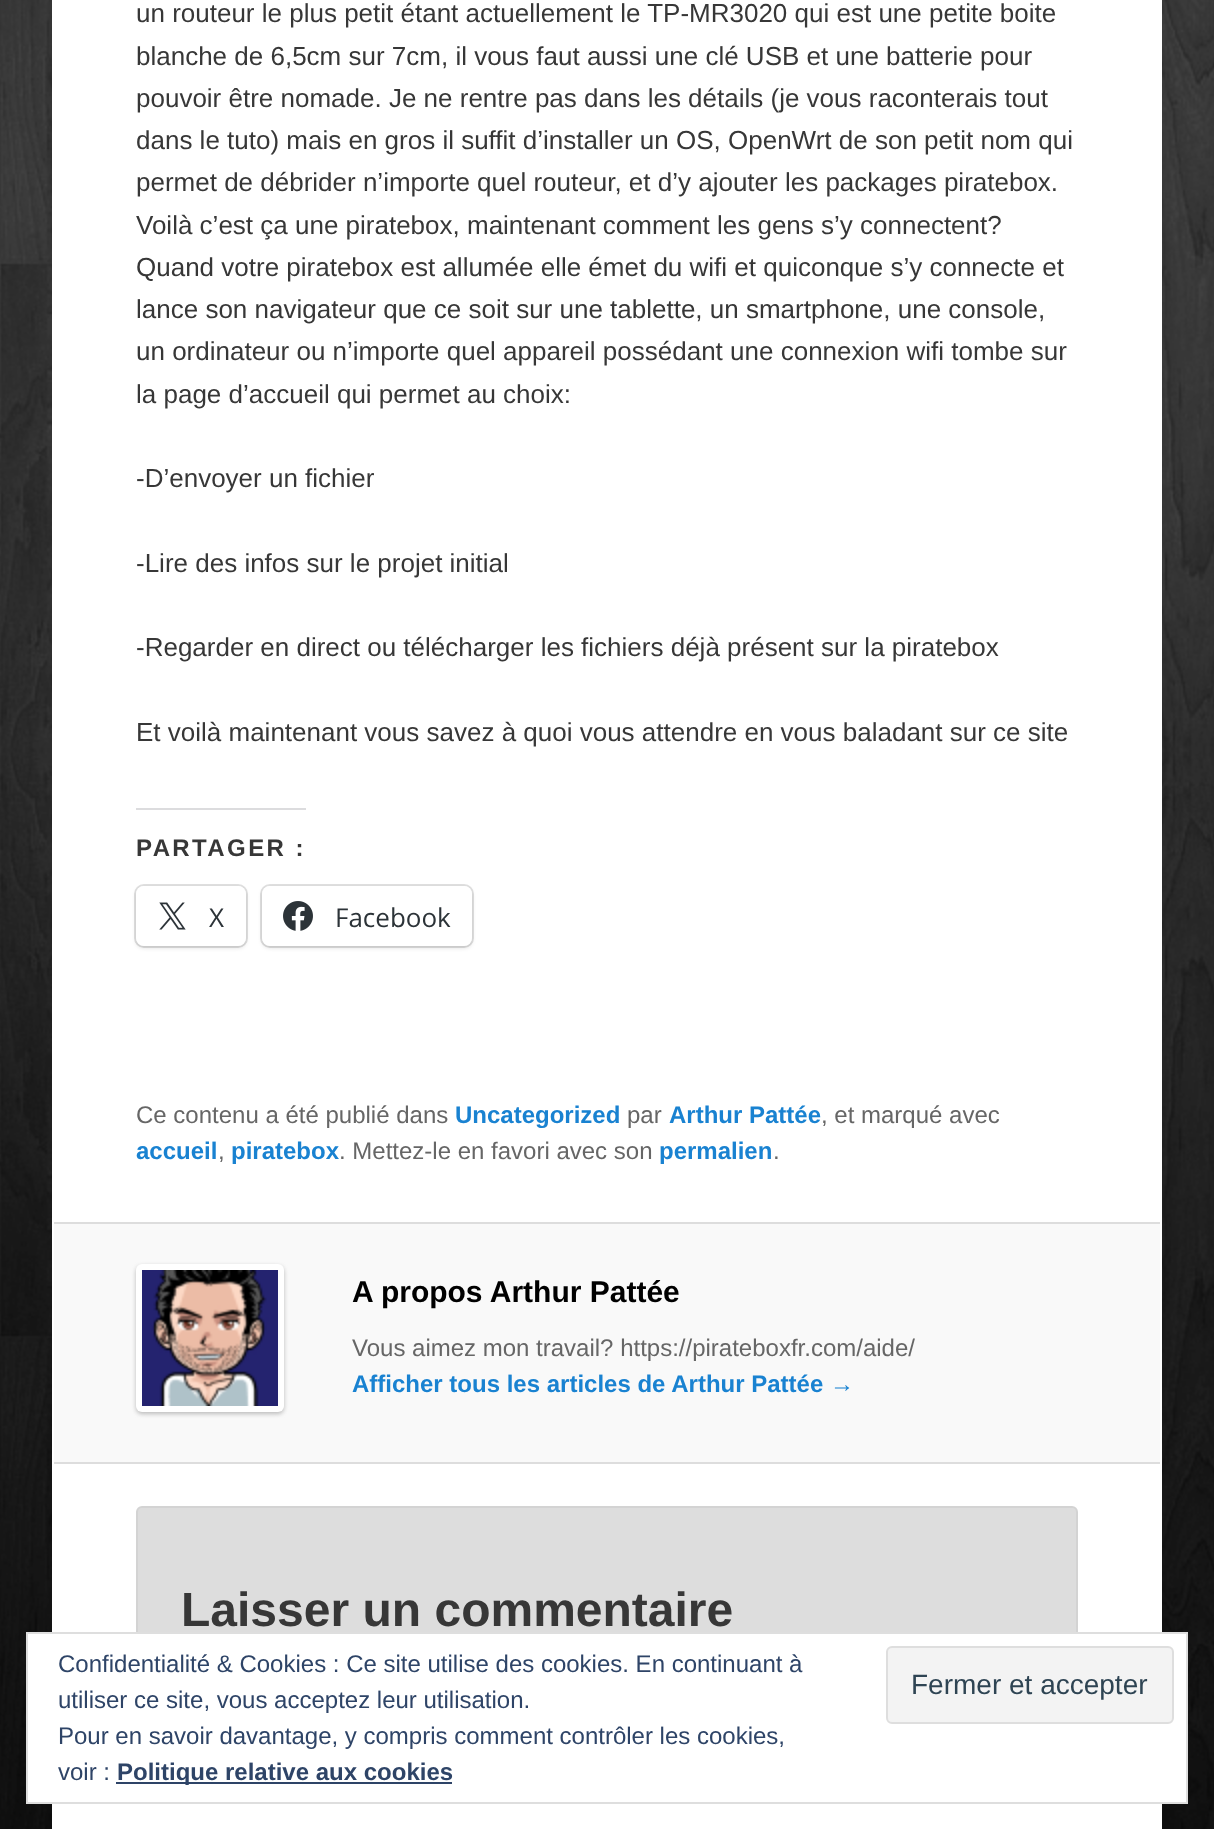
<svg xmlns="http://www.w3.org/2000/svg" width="1214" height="1829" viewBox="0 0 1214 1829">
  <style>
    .t1 { font: 26px Liberation Sans; fill: #373737; }
    .t2 { font: bold 24px Liberation Sans; letter-spacing: 2.4px; fill: #373737; }
    .t3 { font: 26px Open Sans; fill: #2c3338; }
    .t4 { font: 24px Liberation Sans; fill: #666; }
    .t5 { font: bold 24px Liberation Sans; fill: #1982d1; }
    .t6 { font: bold 30px Liberation Sans; fill: #000; }
    .t7 { font: bold 48px Liberation Sans; fill: #373737; }
    .t8 { font: 24px Liberation Sans; fill: #2e4467; }
    .t9 { font: 28px Liberation Sans; fill: #2e4453; }
    .t10 { font: bold 24px Liberation Sans; fill: #2e4467; }
  </style>
  <rect width="100%" height="100%" fill="#fff"/>
  <image x="0" y="0" width="1214" height="1829" href="images/1.png"/>
  <rect x="52" y="0" width="1110" height="1829" fill="#fff"/>
  <text x="136" y="22" class="t1">un routeur le plus petit étant actuellement le TP-MR3020 qui est une petite boite</text>
  <text x="136" y="65" class="t1">blanche de 6,5cm sur 7cm, il vous faut aussi une clé USB et une batterie pour</text>
  <text x="136" y="107" class="t1">pouvoir être nomade. Je ne rentre pas dans les détails (je vous raconterais tout</text>
  <text x="136" y="149" class="t1">dans le tuto) mais en gros il suffit d’installer un OS, OpenWrt de son petit nom qui</text>
  <text x="136" y="191" class="t1">permet de débrider n’importe quel routeur, et d’y ajouter les packages piratebox.</text>
  <text x="136" y="234" class="t1">Voilà c’est ça une piratebox, maintenant comment les gens s’y connectent?</text>
  <text x="136" y="276" class="t1">Quand votre piratebox est allumée elle émet du wifi et quiconque s’y connecte et</text>
  <text x="136" y="318" class="t1">lance son navigateur que ce soit sur une tablette, un smartphone, une console,</text>
  <text x="136" y="360" class="t1">un ordinateur ou n’importe quel appareil possédant une connexion wifi tombe sur</text>
  <text x="136" y="403" class="t1">la page d’accueil qui permet au choix:</text>
  <text x="136" y="487" class="t1">-D’envoyer un fichier</text>
  <text x="136" y="572" class="t1">-Lire des infos sur le projet initial</text>
  <text x="136" y="656" class="t1">-Regarder en direct ou télécharger les fichiers déjà présent sur la piratebox</text>
  <text x="136" y="741" class="t1">Et voilà maintenant vous savez à quoi vous attendre en vous baladant sur ce site</text>
  <rect x="136" y="808" width="170" height="2" fill="#dcdcde"/>
  <text x="136" y="856" class="t2">PARTAGER :</text>
  <rect x="135" y="885" width="112" height="62" rx="9" fill="none" stroke="#e0e0e0" stroke-width="2"/>
  <rect x="136" y="888" width="110" height="60" rx="8" fill="#0000001f" filter="blur(2px)"/>
  <rect x="136" y="886" width="110" height="60" rx="8" fill="#fff"/>
  <image x="159" y="902" width="27" height="28" href="images/2.png"/>
  <text x="209" y="927" class="t3">X</text>
  <rect x="261" y="885" width="212" height="62" rx="9" fill="none" stroke="#e0e0e0" stroke-width="2"/>
  <rect x="262" y="888" width="210" height="60" rx="8" fill="#0000001f" filter="blur(2px)"/>
  <rect x="262" y="886" width="210" height="60" rx="8" fill="#fff"/>
  <image x="283" y="901" width="30" height="30" href="images/3.png"/>
  <text x="335" y="927" class="t3">Facebook</text>
  <text x="136" y="1123" class="t4">Ce contenu a été publié dans</text>
  <text x="455" y="1123" class="t5">Uncategorized</text>
  <text x="627" y="1123" class="t4">par</text>
  <text x="669" y="1123" class="t5">Arthur Pattée</text>
  <text x="821" y="1123" class="t4">, et marqué avec</text>
  <text x="136" y="1159" class="t5">accueil</text>
  <text x="218" y="1159" class="t4">,</text>
  <text x="231" y="1159" class="t5">piratebox</text>
  <text x="339" y="1159" class="t4">. Mettez-le en favori avec son</text>
  <text x="659" y="1159" class="t5">permalien</text>
  <text x="773" y="1159" class="t4">.</text>
  <rect x="54" y="1224" width="1106" height="238" fill="#f9f9f9"/>
  <rect x="54" y="1222" width="1106" height="2" fill="#ddd"/>
  <rect x="54" y="1462" width="1106" height="2" fill="#ddd"/>
  <rect x="136" y="1266" width="148" height="148" rx="6" fill="#bbb" filter="blur(2px)"/>
  <rect x="136" y="1264" width="148" height="148" rx="6" fill="#fff"/>
  <image x="142" y="1270" width="136" height="136" href="images/4.png"/>
  <text x="352" y="1302" class="t6">A propos Arthur Pattée</text>
  <text x="352" y="1356" class="t4">Vous aimez mon travail? https://pirateboxfr.com/aide/</text>
  <text x="352" y="1392" class="t5">Afficher tous les articles de Arthur Pattée →</text>
  <rect x="137" y="1507" width="940" height="212" rx="5" fill="#ddd" stroke="#d3d3d3" stroke-width="2"/>
  <text x="181" y="1626" class="t7">Laisser un commentaire</text>
  <rect x="27" y="1633" width="1160" height="170" fill="#fff" stroke="#dedede" stroke-width="2"/>
  <text x="58" y="1672" class="t8">Confidentialité &amp; Cookies : Ce site utilise des cookies. En continuant à</text>
  <text x="58" y="1708" class="t8">utiliser ce site, vous acceptez leur utilisation.</text>
  <rect x="887" y="1647" width="286" height="76" rx="5" fill="#f3f3f3" stroke="#dedede" stroke-width="2"/>
  <text x="911" y="1694" class="t9">Fermer et accepter</text>
  <text x="58" y="1744" class="t8">Pour en savoir davantage, y compris comment contrôler les cookies,</text>
  <text x="58" y="1780" class="t8">voir :</text>
  <rect x="116" y="1782" width="336" height="2" fill="#2e4467"/>
  <text x="117" y="1780" class="t10">Politique relative aux cookies</text>
</svg>
